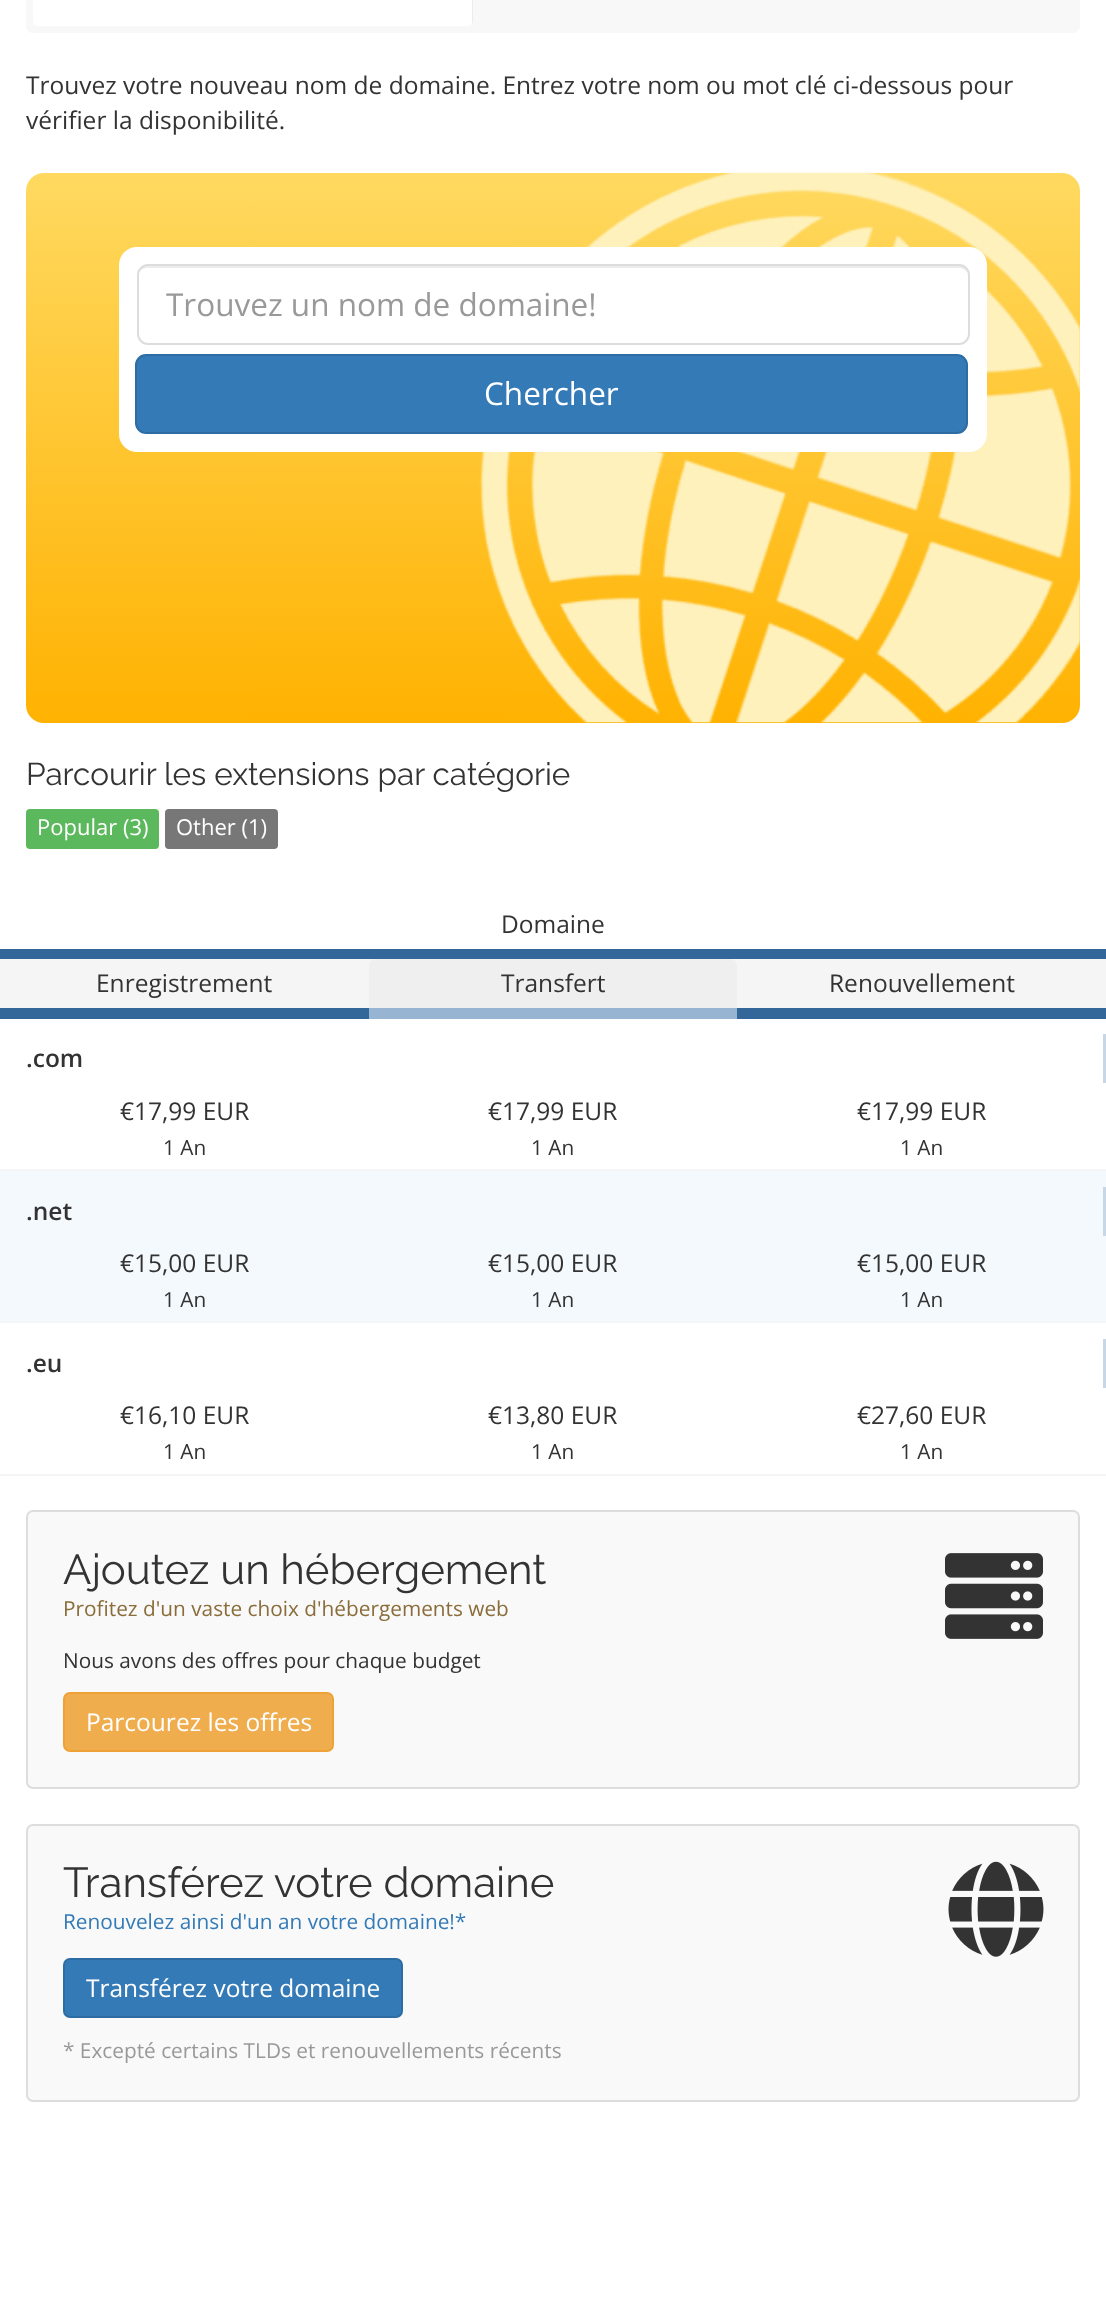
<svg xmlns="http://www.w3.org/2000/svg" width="1106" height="2314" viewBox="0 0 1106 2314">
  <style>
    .t1 { font: 24.5px Open Sans; fill: #333; }
    .t2 { font: 31.5px Open Sans; fill: #999; }
    .t3 { font: 31.5px Open Sans; fill: #fff; }
    .t4 { font: 31.5px Raleway; fill: #333; }
    .t5 { font: 22px Open Sans; fill: #fff; }
    .t6 { font: 600 24.5px Open Sans; fill: #333; }
    .t7 { font: 20.8px Open Sans; fill: #333; }
    .t8 { font: 42px Raleway; fill: #333; }
    .t9 { font: 20.8px Open Sans; fill: #8a6d3b; }
    .t10 { font: 24.5px Open Sans; fill: #fff; }
    .t11 { font: 20.8px Open Sans; fill: #337ab7; }
    .t12 { font: 20.8px Open Sans; fill: #999; }
  </style>
  <defs>
    <linearGradient id="g1" gradientUnits="userSpaceOnUse" x1="553" y1="173" x2="553" y2="723"><stop offset="0" stop-color="#ffd960"/><stop offset="1" stop-color="#ffb201"/></linearGradient>
  </defs>
  <rect width="100%" height="100%" fill="#fff"/>
  <rect x="26" y="-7" width="1054" height="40" rx="7" fill="#f8f8f8"/>
  <rect x="33" y="-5" width="440" height="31" rx="5" fill="#fff"/>
  <path d="M38-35H467C470-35 472-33 472-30V24C473 23 473 22 473 21V-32C473-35 471-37 468-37H38C35-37 33-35 33-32V-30C33-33 36-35 38-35Z" fill="#ececec"/>
  <text x="26" y="94" class="t1">Trouvez votre nouveau nom de domaine. Entrez votre nom ou mot clé ci-dessous pour</text>
  <text x="26" y="129" class="t1">vérifier la disponibilité.</text>
  <rect x="26" y="173" width="1054" height="550" rx="18" fill="url(#g1)"/>
  <image x="479" y="172" width="601" height="551" href="images/1.png"/>
  <rect x="119" y="247" width="868" height="205" rx="18" fill="#fff"/>
  <path d="M147 268H959C964 268 968 272 968 276C968 271 965 266 959 266H147C141 266 138 271 138 276C138 272 142 268 147 268Z" fill="#ececec"/>
  <rect x="138" y="265" width="831" height="79" rx="10" fill="none" stroke="#ddd" stroke-width="2"/>
  <text x="166" y="316" class="t2">Trouvez un nom de domaine!</text>
  <rect x="136" y="355" width="831" height="78" rx="10" fill="#337ab7" stroke="#2e6da4" stroke-width="2"/>
  <text x="484" y="405" class="t3">Chercher</text>
  <text x="26" y="785" class="t4">Parcourir les extensions par catégorie</text>
  <rect x="26" y="809" width="133" height="40" rx="4" fill="#5cb85c"/>
  <text x="37" y="835" class="t5">Popular (3)</text>
  <rect x="165" y="809" width="113" height="40" rx="4" fill="#777"/>
  <text x="176" y="835" class="t5">Other (1)</text>
  <rect x="0" y="949" width="1106" height="10" fill="#369"/>
  <text x="501" y="933" class="t1">Domaine</text>
  <rect x="0" y="959" width="1106" height="49" fill="#f5f5f5"/>
  <rect x="0" y="1008" width="369" height="11" fill="#369"/>
  <text x="96" y="992" class="t1">Enregistrement</text>
  <path d="M376 959H730C734 959 737 962 737 966V1019H369V966C369 962 372 959 376 959Z" fill="#efefef"/>
  <rect x="369" y="1008" width="368" height="11" fill="#97b5d2"/>
  <text x="501" y="992" class="t1">Transfert</text>
  <rect x="737" y="1008" width="369" height="11" fill="#369"/>
  <text x="829" y="992" class="t1">Renouvellement</text>
  <rect x="0" y="1169" width="1106" height="2" fill="#f5f5f5"/>
  <rect x="1103" y="1034" width="3" height="49" fill="#c7d7e6"/>
  <text x="26" y="1067" class="t6">.com</text>
  <text x="120" y="1120" class="t1">€17,99 EUR</text>
  <text x="163" y="1155" class="t7">1 An</text>
  <text x="488" y="1120" class="t1">€17,99 EUR</text>
  <text x="531" y="1155" class="t7">1 An</text>
  <text x="857" y="1120" class="t1">€17,99 EUR</text>
  <text x="900" y="1155" class="t7">1 An</text>
  <rect x="0" y="1171" width="1106" height="150" fill="#f3f9fd"/>
  <rect x="0" y="1321" width="1106" height="2" fill="#f5f5f5"/>
  <rect x="1103" y="1187" width="3" height="49" fill="#c7d7e6"/>
  <text x="26" y="1220" class="t6">.net</text>
  <text x="120" y="1272" class="t1">€15,00 EUR</text>
  <text x="163" y="1307" class="t7">1 An</text>
  <text x="488" y="1272" class="t1">€15,00 EUR</text>
  <text x="531" y="1307" class="t7">1 An</text>
  <text x="857" y="1272" class="t1">€15,00 EUR</text>
  <text x="900" y="1307" class="t7">1 An</text>
  <rect x="0" y="1474" width="1106" height="2" fill="#f5f5f5"/>
  <rect x="1103" y="1339" width="3" height="49" fill="#c7d7e6"/>
  <text x="26" y="1372" class="t6">.eu</text>
  <text x="120" y="1424" class="t1">€16,10 EUR</text>
  <text x="163" y="1459" class="t7">1 An</text>
  <text x="488" y="1424" class="t1">€13,80 EUR</text>
  <text x="531" y="1459" class="t7">1 An</text>
  <text x="857" y="1424" class="t1">€27,60 EUR</text>
  <text x="900" y="1459" class="t7">1 An</text>
  <rect x="27" y="1511" width="1052" height="277" rx="6" fill="#f9f9f9" stroke="#ddd" stroke-width="2"/>
  <text x="63" y="1584" class="t8">Ajoutez un hébergement</text>
  <image x="945" y="1553" width="98" height="86" href="images/2.png"/>
  <text x="63" y="1616" class="t9">Profitez d'un vaste choix d'hébergements web</text>
  <text x="63" y="1668" class="t7">Nous avons des offres pour chaque budget</text>
  <rect x="64" y="1693" width="269" height="58" rx="6" fill="#f0ad4e" stroke="#eea236" stroke-width="2"/>
  <text x="86" y="1731" class="t10">Parcourez les offres</text>
  <rect x="27" y="1825" width="1052" height="276" rx="6" fill="#f9f9f9" stroke="#ddd" stroke-width="2"/>
  <text x="63" y="1897" class="t8">Transférez votre domaine</text>
  <image x="948" y="1861" width="96" height="96" href="images/3.png"/>
  <text x="63" y="1929" class="t11">Renouvelez ainsi d'un an votre domaine!*</text>
  <rect x="64" y="1959" width="338" height="58" rx="6" fill="#337ab7" stroke="#2e6da4" stroke-width="2"/>
  <text x="86" y="1997" class="t10">Transférez votre domaine</text>
  <text x="63" y="2058" class="t12">* Excepté certains TLDs et renouvellements récents</text>
</svg>
